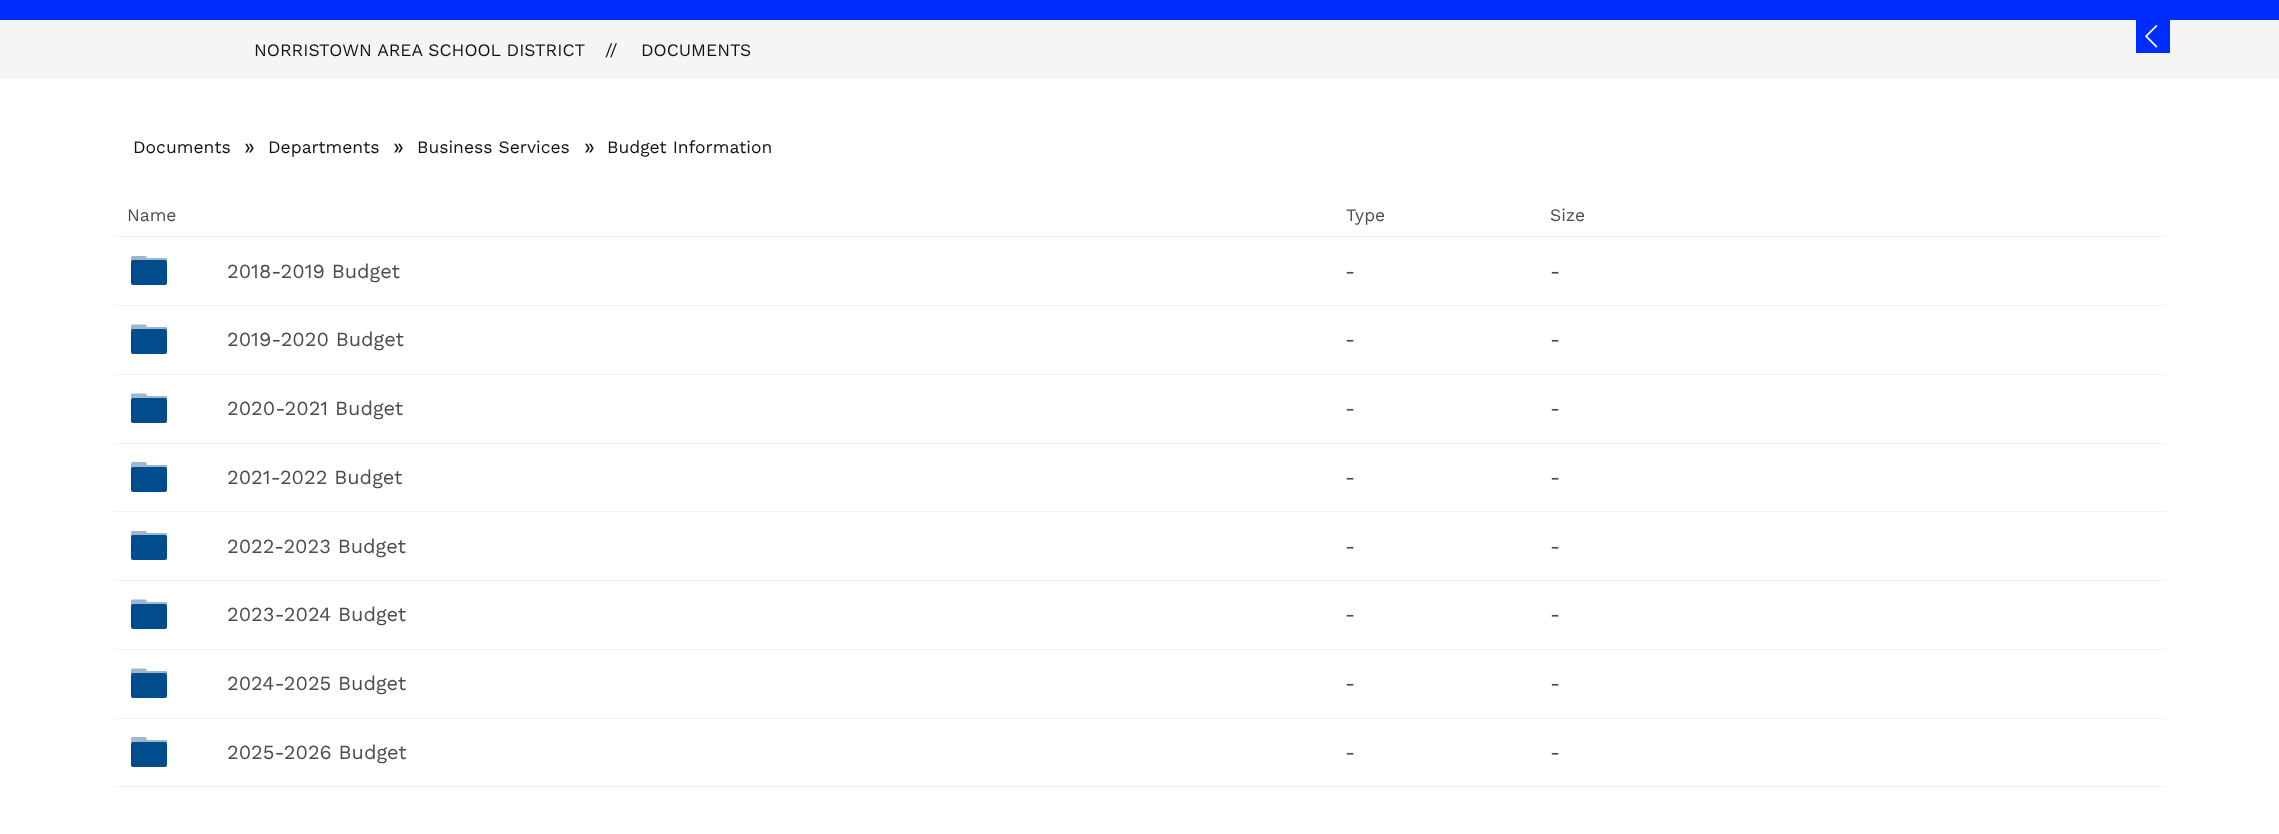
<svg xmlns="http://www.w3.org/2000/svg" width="2279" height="834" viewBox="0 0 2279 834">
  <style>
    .t1 { font: 17.5px Work Sans; fill: #111; }
    .t2 { font: 22px Work Sans; fill: #111; }
    .t3 { font: 17.5px Work Sans; fill: #4c4c4c; }
    .t4 { font: 20px Work Sans; fill: #4c4c4c; }
  </style>
  <rect width="100%" height="100%" fill="#fff"/>
  <rect x="0" y="0" width="2279" height="20" fill="#002dff"/>
  <rect x="0" y="20" width="2279" height="59" fill="#f5f5f5"/>
  <rect x="2136" y="20" width="34" height="33" fill="#002dff"/>
  <image x="2145" y="25" width="13" height="23" href="images/1.png"/>
  <text x="254" y="56" class="t1">NORRISTOWN AREA SCHOOL DISTRICT</text>
  <text x="605" y="56" class="t1">//</text>
  <text x="641" y="56" class="t1">DOCUMENTS</text>
  <text x="133" y="153" class="t1">Documents</text>
  <text x="244" y="154" class="t2">»</text>
  <text x="268" y="153" class="t1">Departments</text>
  <text x="393" y="154" class="t2">»</text>
  <text x="417" y="153" class="t1">Business Services</text>
  <text x="584" y="154" class="t2">»</text>
  <text x="607" y="153" class="t1">Budget Information</text>
  <rect x="114" y="236" width="2052" height="1" fill="#f0f0f0"/>
  <text x="127" y="221" class="t3">Name</text>
  <text x="1346" y="221" class="t3">Type</text>
  <text x="1550" y="221" class="t3">Size</text>
  <rect x="114" y="305" width="2052" height="1" fill="#f0f0f0"/>
  <rect x="131" y="258" width="36" height="4" rx="1" fill="#9eb7ce"/>
  <path d="M133 256H141C145.5 256 147 255 147 260H131C131 258.5 130.5 256 133 256Z" fill="#9eb7ce"/>
  <rect x="131" y="260" width="36" height="25" rx="2" fill="#004c8d"/>
  <text x="227" y="278" class="t4">2018-2019 Budget</text>
  <text x="1345" y="278" class="t4">-</text>
  <text x="1550" y="278" class="t4">-</text>
  <rect x="114" y="374" width="2052" height="1" fill="#f0f0f0"/>
  <rect x="131" y="327" width="36" height="4" rx="1" fill="#9eb7ce"/>
  <path d="M133 324.5H141C145.5 324.5 147 323.5 147 328.5H131C131 327 130.5 324.5 133 324.5Z" fill="#9eb7ce"/>
  <rect x="131" y="329" width="36" height="25" rx="2" fill="#004c8d"/>
  <text x="227" y="346" class="t4">2019-2020 Budget</text>
  <text x="1345" y="346" class="t4">-</text>
  <text x="1550" y="346" class="t4">-</text>
  <rect x="114" y="443" width="2052" height="1" fill="#f0f0f0"/>
  <rect x="131" y="396" width="36" height="4" rx="1" fill="#9eb7ce"/>
  <path d="M133 393.5H141C145.5 393.5 147 392.5 147 397.5H131C131 396 130.5 393.5 133 393.5Z" fill="#9eb7ce"/>
  <rect x="131" y="398" width="36" height="25" rx="2" fill="#004c8d"/>
  <text x="227" y="415" class="t4">2020-2021 Budget</text>
  <text x="1345" y="415" class="t4">-</text>
  <text x="1550" y="415" class="t4">-</text>
  <rect x="114" y="511" width="2052" height="1" fill="#f0f0f0"/>
  <rect x="131" y="465" width="36" height="4" rx="1" fill="#9eb7ce"/>
  <path d="M133 462H141C145.5 462 147 461 147 466H131C131 464.5 130.5 462 133 462Z" fill="#9eb7ce"/>
  <rect x="131" y="467" width="36" height="25" rx="2" fill="#004c8d"/>
  <text x="227" y="484" class="t4">2021-2022 Budget</text>
  <text x="1345" y="484" class="t4">-</text>
  <text x="1550" y="484" class="t4">-</text>
  <rect x="114" y="580" width="2052" height="1" fill="#f0f0f0"/>
  <rect x="131" y="533" width="36" height="4" rx="1" fill="#9eb7ce"/>
  <path d="M133 531H141C145.5 531 147 530 147 535H131C131 533.5 130.5 531 133 531Z" fill="#9eb7ce"/>
  <rect x="131" y="535" width="36" height="25" rx="2" fill="#004c8d"/>
  <text x="227" y="553" class="t4">2022-2023 Budget</text>
  <text x="1345" y="553" class="t4">-</text>
  <text x="1550" y="553" class="t4">-</text>
  <rect x="114" y="649" width="2052" height="1" fill="#f0f0f0"/>
  <rect x="131" y="602" width="36" height="4" rx="1" fill="#9eb7ce"/>
  <path d="M133 599.5H141C145.5 599.5 147 598.5 147 603.5H131C131 602 130.5 599.5 133 599.5Z" fill="#9eb7ce"/>
  <rect x="131" y="604" width="36" height="25" rx="2" fill="#004c8d"/>
  <text x="227" y="621" class="t4">2023-2024 Budget</text>
  <text x="1345" y="621" class="t4">-</text>
  <text x="1550" y="621" class="t4">-</text>
  <rect x="114" y="718" width="2052" height="1" fill="#f0f0f0"/>
  <rect x="131" y="671" width="36" height="4" rx="1" fill="#9eb7ce"/>
  <path d="M133 668.5H141C145.5 668.5 147 667.5 147 672.5H131C131 671 130.5 668.5 133 668.5Z" fill="#9eb7ce"/>
  <rect x="131" y="673" width="36" height="25" rx="2" fill="#004c8d"/>
  <text x="227" y="690" class="t4">2024-2025 Budget</text>
  <text x="1345" y="690" class="t4">-</text>
  <text x="1550" y="690" class="t4">-</text>
  <rect x="114" y="786" width="2052" height="1" fill="#f0f0f0"/>
  <rect x="131" y="740" width="36" height="4" rx="1" fill="#9eb7ce"/>
  <path d="M133 737H141C145.5 737 147 736 147 741H131C131 739.5 130.5 737 133 737Z" fill="#9eb7ce"/>
  <rect x="131" y="742" width="36" height="25" rx="2" fill="#004c8d"/>
  <text x="227" y="759" class="t4">2025-2026 Budget</text>
  <text x="1345" y="759" class="t4">-</text>
  <text x="1550" y="759" class="t4">-</text>
</svg>
